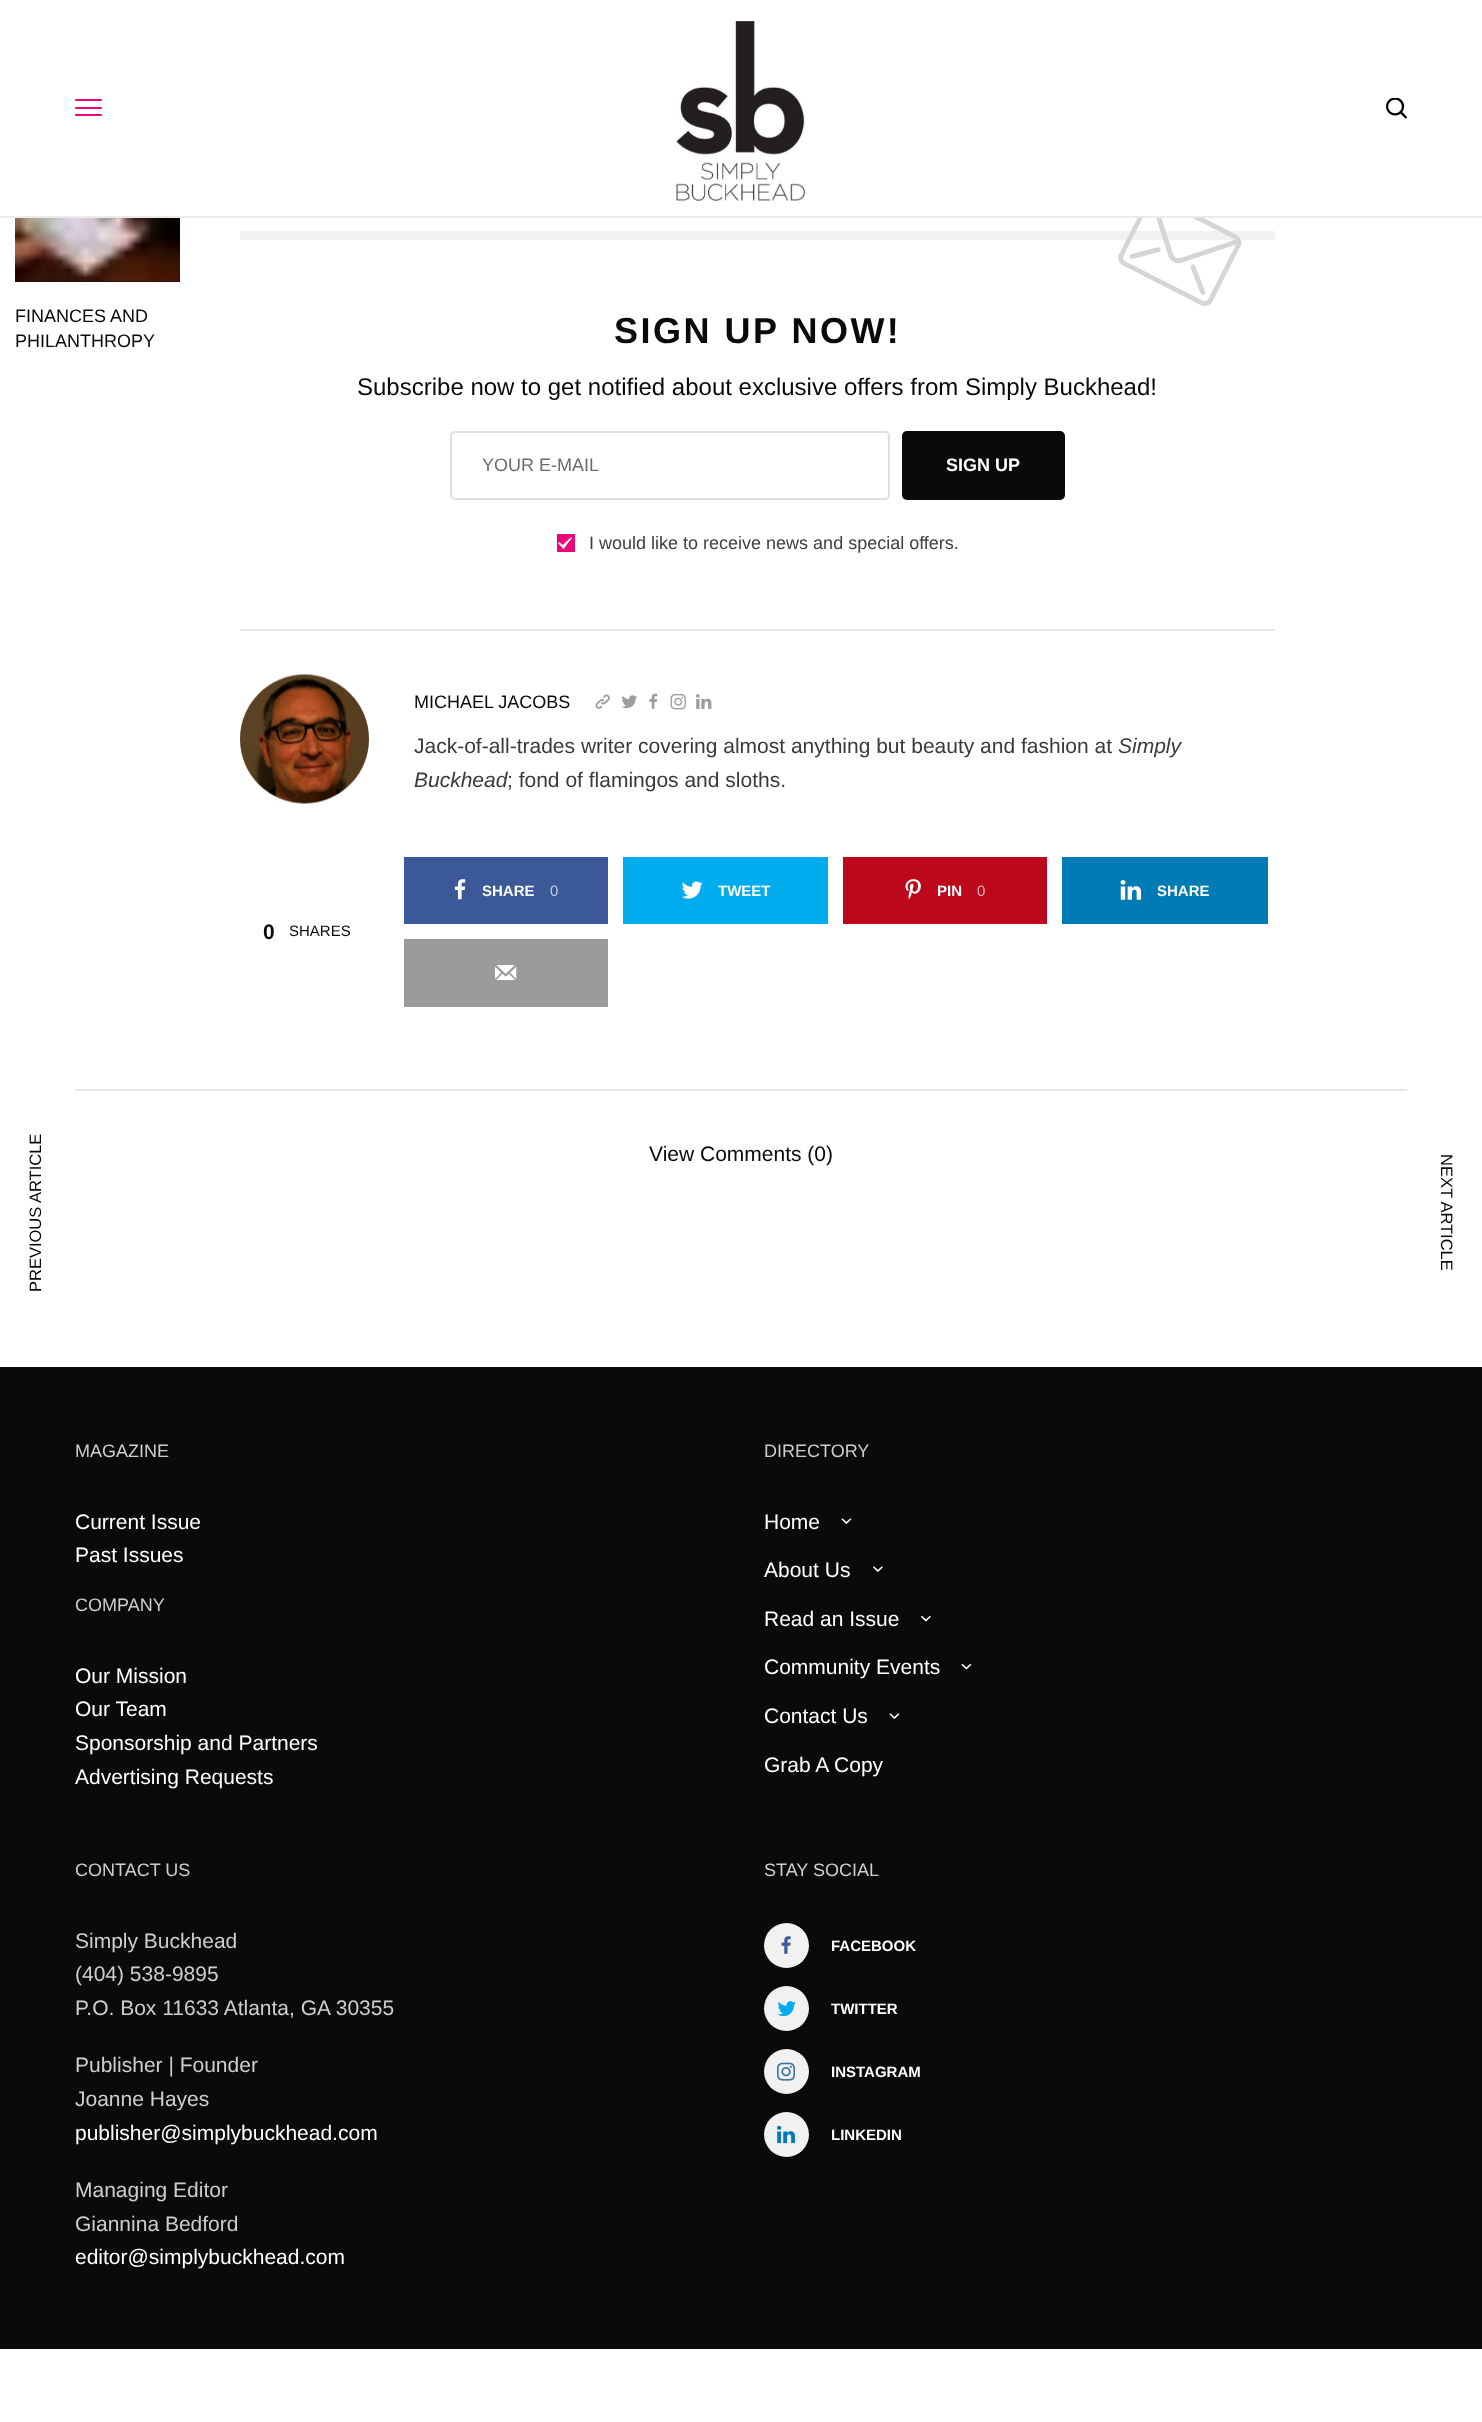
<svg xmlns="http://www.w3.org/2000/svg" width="1482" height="2422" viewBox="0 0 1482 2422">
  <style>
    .t1 { font: 18px Liberation Sans; fill: #0a0a0a; }
    .t2 { font: bold 36px Liberation Sans; letter-spacing: 2.5px; fill: #0a0a0a; }
    .t3 { font: 24px Liberation Sans; fill: #0a0a0a; }
    .t4 { font: 18px Liberation Sans; fill: #6c6c6c; }
    .t5 { font: bold 18px Liberation Sans; fill: #fff; }
    .t6 { font: 18px Liberation Sans; fill: #404040; }
    .t7 { font: 21px Liberation Sans; fill: #3a3a3a; }
    .t8 { font: italic 21px Liberation Sans; fill: #3a3a3a; }
    .t9 { font: bold 15px Liberation Sans; fill: #fff; }
    .t10 { font: 15px Liberation Sans; fill: #c4cde0; }
    .t11 { font: 15px Liberation Sans; fill: #ebb5bb; }
    .t12 { font: bold 21px Liberation Sans; fill: #0a0a0a; }
    .t13 { font: 15px Liberation Sans; fill: #0a0a0a; }
    .t14 { font: 16.5px Liberation Sans; fill: #0a0a0a; }
    .t15 { font: 21px Liberation Sans; fill: #0a0a0a; }
    .t16 { font: 18px Liberation Sans; fill: #cecece; }
    .t17 { font: 21px Liberation Sans; fill: #fff; }
    .t18 { font: 21px Liberation Sans; fill: #cecece; }
  </style>
  <rect width="100%" height="100%" fill="#fff"/>
  <rect x="75" y="99" width="27" height="2" rx="1" fill="#ed0678"/>
  <rect x="75" y="107" width="27" height="2" rx="1" fill="#ed0678"/>
  <rect x="75" y="114" width="27" height="2" rx="1" fill="#ed0678"/>
  <image x="676" y="21" width="130" height="180" href="images/1.png"/>
  <image x="1386" y="98" width="21" height="21" href="images/2.png"/>
  <rect x="0" y="216" width="1482" height="2" fill="#ebebeb"/>
  <rect x="15" y="281" width="165" height="1" fill="#0a0a0a"/>
  <image x="15" y="218" width="165" height="64" href="images/3.png"/>
  <text x="15" y="322" class="t1">FINANCES AND</text>
  <text x="15" y="347" class="t1">PHILANTHROPY</text>
  <rect x="240" y="231" width="1035" height="9" fill="#f2f2f2"/>
  <image x="1118" y="218" width="124" height="88" href="images/4.png"/>
  <text x="614" y="343" class="t2">SIGN UP NOW!</text>
  <text x="357" y="395" class="t3">Subscribe now to get notified about exclusive offers from Simply Buckhead!</text>
  <rect x="451" y="432" width="438" height="67" rx="4" fill="none" stroke="#dfdfdf" stroke-width="2"/>
  <text x="482" y="471" class="t4">YOUR E-MAIL</text>
  <rect x="902" y="431" width="163" height="69" rx="5" fill="#0a0a0a"/>
  <text x="946" y="471" class="t5">SIGN UP</text>
  <rect x="557" y="534" width="18" height="18" fill="#ed0678"/>
  <image x="558" y="537" width="15" height="13" href="images/5.png"/>
  <text x="589" y="549" class="t6">I would like to receive news and special offers.</text>
  <rect x="240" y="629" width="1035" height="2" fill="#e9e9e9"/>
  <image x="240" y="674" width="129" height="130" href="images/6.png"/>
  <text x="414" y="708" class="t1">MICHAEL JACOBS</text>
  <image x="595" y="694" width="15" height="15" href="images/7.png"/>
  <image x="621" y="695" width="16" height="14" href="images/8.png"/>
  <image x="649" y="693" width="9" height="16" href="images/9.png"/>
  <image x="670" y="694" width="16" height="16" href="images/10.png"/>
  <image x="696" y="694" width="16" height="15" href="images/11.png"/>
  <text x="414" y="753" class="t7">Jack-of-all-trades writer covering almost anything but beauty and fashion at</text>
  <text x="1118" y="753" class="t8">Simply</text>
  <text x="414" y="787" class="t8">Buckhead</text>
  <text x="507" y="787" class="t7">; fond of flamingos and sloths.</text>
  <rect x="404" y="857" width="204" height="67" fill="#3b5998"/>
  <image x="454" y="879" width="12" height="21" href="images/12.png"/>
  <text x="482" y="896" class="t9">SHARE</text>
  <text x="550" y="896" class="t10">0</text>
  <rect x="623" y="857" width="205" height="67" fill="#00aced"/>
  <image x="681" y="881" width="22" height="18" href="images/13.png"/>
  <text x="718" y="896" class="t9">TWEET</text>
  <rect x="843" y="857" width="204" height="67" fill="#bd081c"/>
  <image x="905" y="879" width="16" height="21" href="images/14.png"/>
  <text x="937" y="896" class="t9">PIN</text>
  <text x="977" y="896" class="t11">0</text>
  <rect x="1062" y="857" width="206" height="67" fill="#007bb6"/>
  <image x="1120" y="880" width="22" height="20" href="images/15.png"/>
  <text x="1157" y="896" class="t9">SHARE</text>
  <rect x="404" y="939" width="204" height="68" fill="#9b9b9b"/>
  <image x="495" y="965" width="22" height="16" href="images/16.png"/>
  <text x="263" y="939" class="t12">0</text>
  <text x="289" y="936" class="t13">SHARES</text>
  <text x="41" y="1292" transform="rotate(-90 41 1292)" class="t14">PREVIOUS ARTICLE</text>
  <rect x="75" y="1089" width="1332" height="2" fill="#e9e9e9"/>
  <text x="649" y="1161" class="t15">View Comments (0)</text>
  <text x="1441" y="1154" transform="rotate(90 1441 1154)" class="t14">NEXT ARTICLE</text>
  <rect x="0" y="1367" width="1482" height="982" fill="#0a0a0a"/>
  <text x="75" y="1457" class="t16">MAGAZINE</text>
  <text x="75" y="1529" class="t17">Current Issue</text>
  <text x="75" y="1562" class="t17">Past Issues</text>
  <text x="75" y="1611" class="t16">COMPANY</text>
  <text x="75" y="1683" class="t17">Our Mission</text>
  <text x="75" y="1716" class="t17">Our Team</text>
  <text x="75" y="1750" class="t17">Sponsorship and Partners</text>
  <text x="75" y="1784" class="t17">Advertising Requests</text>
  <text x="764" y="1457" class="t16">DIRECTORY</text>
  <text x="764" y="1529" class="t17">Home</text>
  <image x="841" y="1518" width="11" height="6" href="images/17.png"/>
  <text x="764" y="1577" class="t17">About Us</text>
  <image x="873" y="1566" width="10" height="6" href="images/18.png"/>
  <text x="764" y="1626" class="t17">Read an Issue</text>
  <image x="921" y="1615" width="10" height="7" href="images/19.png"/>
  <text x="764" y="1674" class="t17">Community Events</text>
  <image x="961" y="1663" width="11" height="7" href="images/20.png"/>
  <text x="764" y="1723" class="t17">Contact Us</text>
  <image x="889" y="1713" width="11" height="6" href="images/17.png"/>
  <text x="764" y="1772" class="t17">Grab A Copy</text>
  <text x="75" y="1876" class="t16">CONTACT US</text>
  <text x="75" y="1948" class="t18">Simply Buckhead</text>
  <text x="75" y="1981" class="t18">(404) 538-9895</text>
  <text x="75" y="2015" class="t18">P.O. Box 11633 Atlanta, GA 30355</text>
  <text x="75" y="2072" class="t18">Publisher | Founder</text>
  <text x="75" y="2106" class="t18">Joanne Hayes</text>
  <text x="75" y="2140" class="t17">publisher@simplybuckhead.com</text>
  <text x="75" y="2197" class="t18">Managing Editor</text>
  <text x="75" y="2231" class="t18">Giannina Bedford</text>
  <text x="75" y="2264" class="t17">editor@simplybuckhead.com</text>
  <text x="764" y="1876" class="t16">STAY SOCIAL</text>
  <circle cx="786.5" cy="1945.5" r="22.5" fill="#f1f1f1"/>
  <image x="781" y="1936" width="10" height="18" href="images/21.png"/>
  <text x="831" y="1951" class="t9">FACEBOOK</text>
  <circle cx="786.5" cy="2008.5" r="22.5" fill="#f1f1f1"/>
  <image x="777" y="2001" width="19" height="16" href="images/22.png"/>
  <text x="831" y="2014" class="t9">TWITTER</text>
  <circle cx="786.5" cy="2071.5" r="22.5" fill="#f1f1f1"/>
  <image x="777" y="2062" width="18" height="19" href="images/23.png"/>
  <text x="831" y="2077" class="t9">INSTAGRAM</text>
  <circle cx="786.5" cy="2134.5" r="22.5" fill="#f1f1f1"/>
  <image x="777" y="2125" width="18" height="19" href="images/24.png"/>
  <text x="831" y="2140" class="t9">LINKEDIN</text>
</svg>
